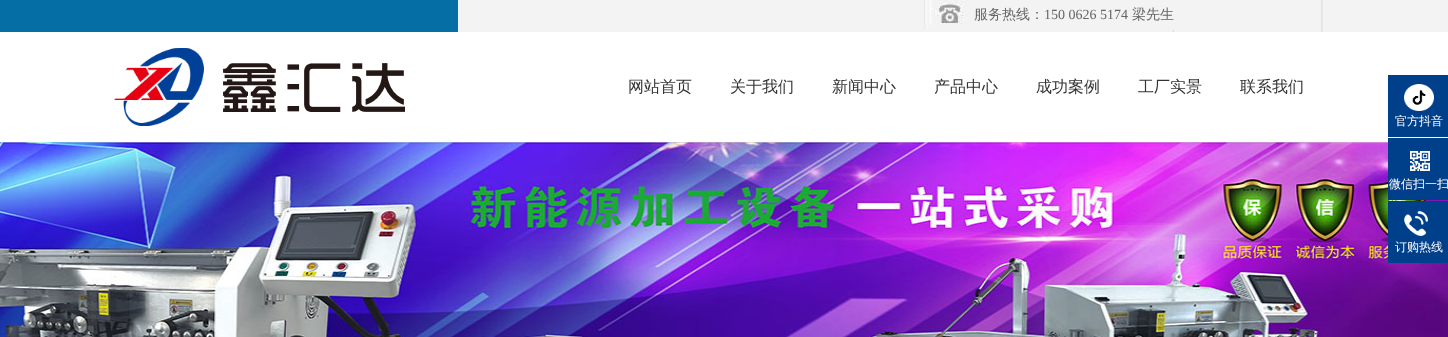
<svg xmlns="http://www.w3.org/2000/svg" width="1448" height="337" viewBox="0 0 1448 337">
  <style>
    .t1 { font: 500 14px WenQuanYi Zen Hei; fill: #666; }
    .t2 { font: 14px Liberation Serif; fill: #666; }
    .t3 { font: 500 16px WenQuanYi Zen Hei; fill: #333; }
    .t4 { font: 500 12px WenQuanYi Zen Hei; fill: #fff; }
  </style>
  <rect width="100%" height="100%" fill="#fff"/>
  <image x="0" y="0" width="1448" height="32" href="images/1.png"/>
  <image x="924" y="0" width="250" height="30" href="images/2.png"/>
  <text x="974" y="19" class="t1">服务热线：</text>
  <text x="1044" y="19" class="t2">150 0626 5174</text>
  <text x="1132" y="19" class="t1">梁先生</text>
  <image x="114" y="48" width="291" height="78" href="images/3.png"/>
  <text x="628" y="92" class="t3">网站首页</text>
  <text x="730" y="92" class="t3">关于我们</text>
  <text x="832" y="92" class="t3">新闻中心</text>
  <text x="934" y="92" class="t3">产品中心</text>
  <text x="1036" y="92" class="t3">成功案例</text>
  <text x="1138" y="92" class="t3">工厂实景</text>
  <text x="1240" y="92" class="t3">联系我们</text>
  <rect x="1388" y="75" width="60" height="62" fill="#003f8a"/>
  <image x="1404" y="84" width="30" height="27" href="images/4.png"/>
  <text x="1395" y="125" class="t4">官方抖音</text>
  <image x="0" y="142" width="1448" height="195" href="images/7.png"/>
  <rect x="1388" y="138" width="60" height="62" fill="#003f8a"/>
  <image x="1410" y="151" width="20" height="20" href="images/5.png"/>
  <text x="1389" y="188" class="t4">微信扫一扫</text>
  <rect x="1388" y="201" width="60" height="62" fill="#003f8a"/>
  <image x="1404" y="211" width="24" height="25" href="images/6.png"/>
  <text x="1395" y="251" class="t4">订购热线</text>
</svg>
